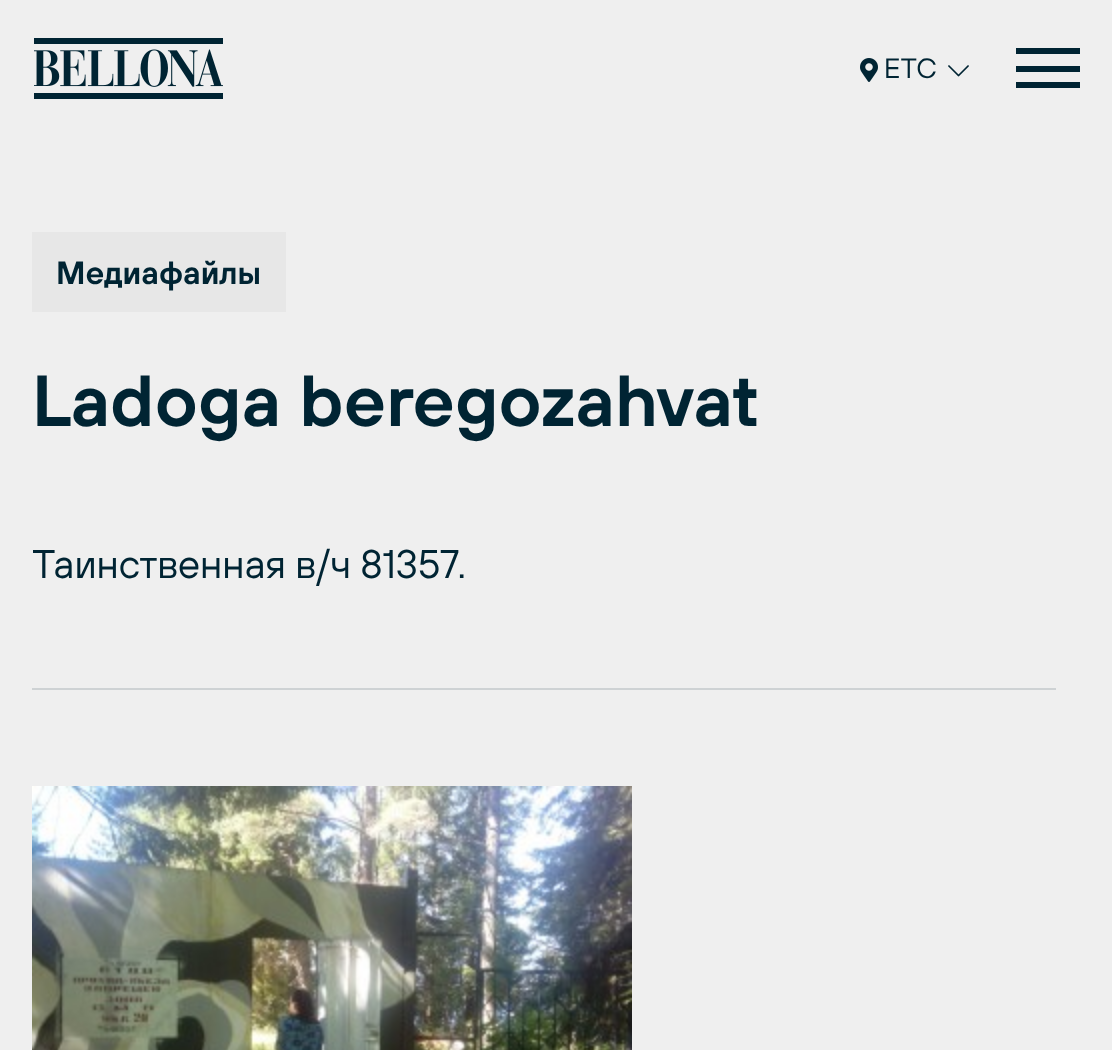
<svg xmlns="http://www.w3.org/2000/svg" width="1112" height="1050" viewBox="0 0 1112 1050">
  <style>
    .t1 { font: 28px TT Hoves; fill: #002433; }
    .t2 { font: 600 32px TT Hoves; fill: #002433; }
    .t3 { font: 600 72px TT Hoves; fill: #002433; }
    .t4 { font: 40px TT Hoves; fill: #002433; }
  </style>
  <rect width="100%" height="100%" fill="#efefef"/>
  <image x="34" y="38" width="189" height="61" href="images/1.png"/>
  <image x="860" y="58" width="18" height="24" href="images/2.png"/>
  <text x="884" y="78" class="t1">ETC</text>
  <image x="948" y="65" width="21" height="12" href="images/3.png"/>
  <rect x="1016" y="48" width="64" height="6" fill="#002433"/>
  <rect x="1016" y="66" width="64" height="6" fill="#002433"/>
  <rect x="1016" y="82" width="64" height="6" fill="#002433"/>
  <rect x="32" y="232" width="254" height="80" fill="#e7e7e7"/>
  <text x="56" y="284" class="t2">Медиафайлы</text>
  <text x="32" y="426" class="t3">Ladoga beregozahvat</text>
  <text x="32" y="578" class="t4">Таинственная в/ч 81357.</text>
  <rect x="32" y="688" width="1024" height="2" fill="#ced2d4"/>
  <image x="32" y="786" width="600" height="264" href="images/4.png"/>
</svg>
